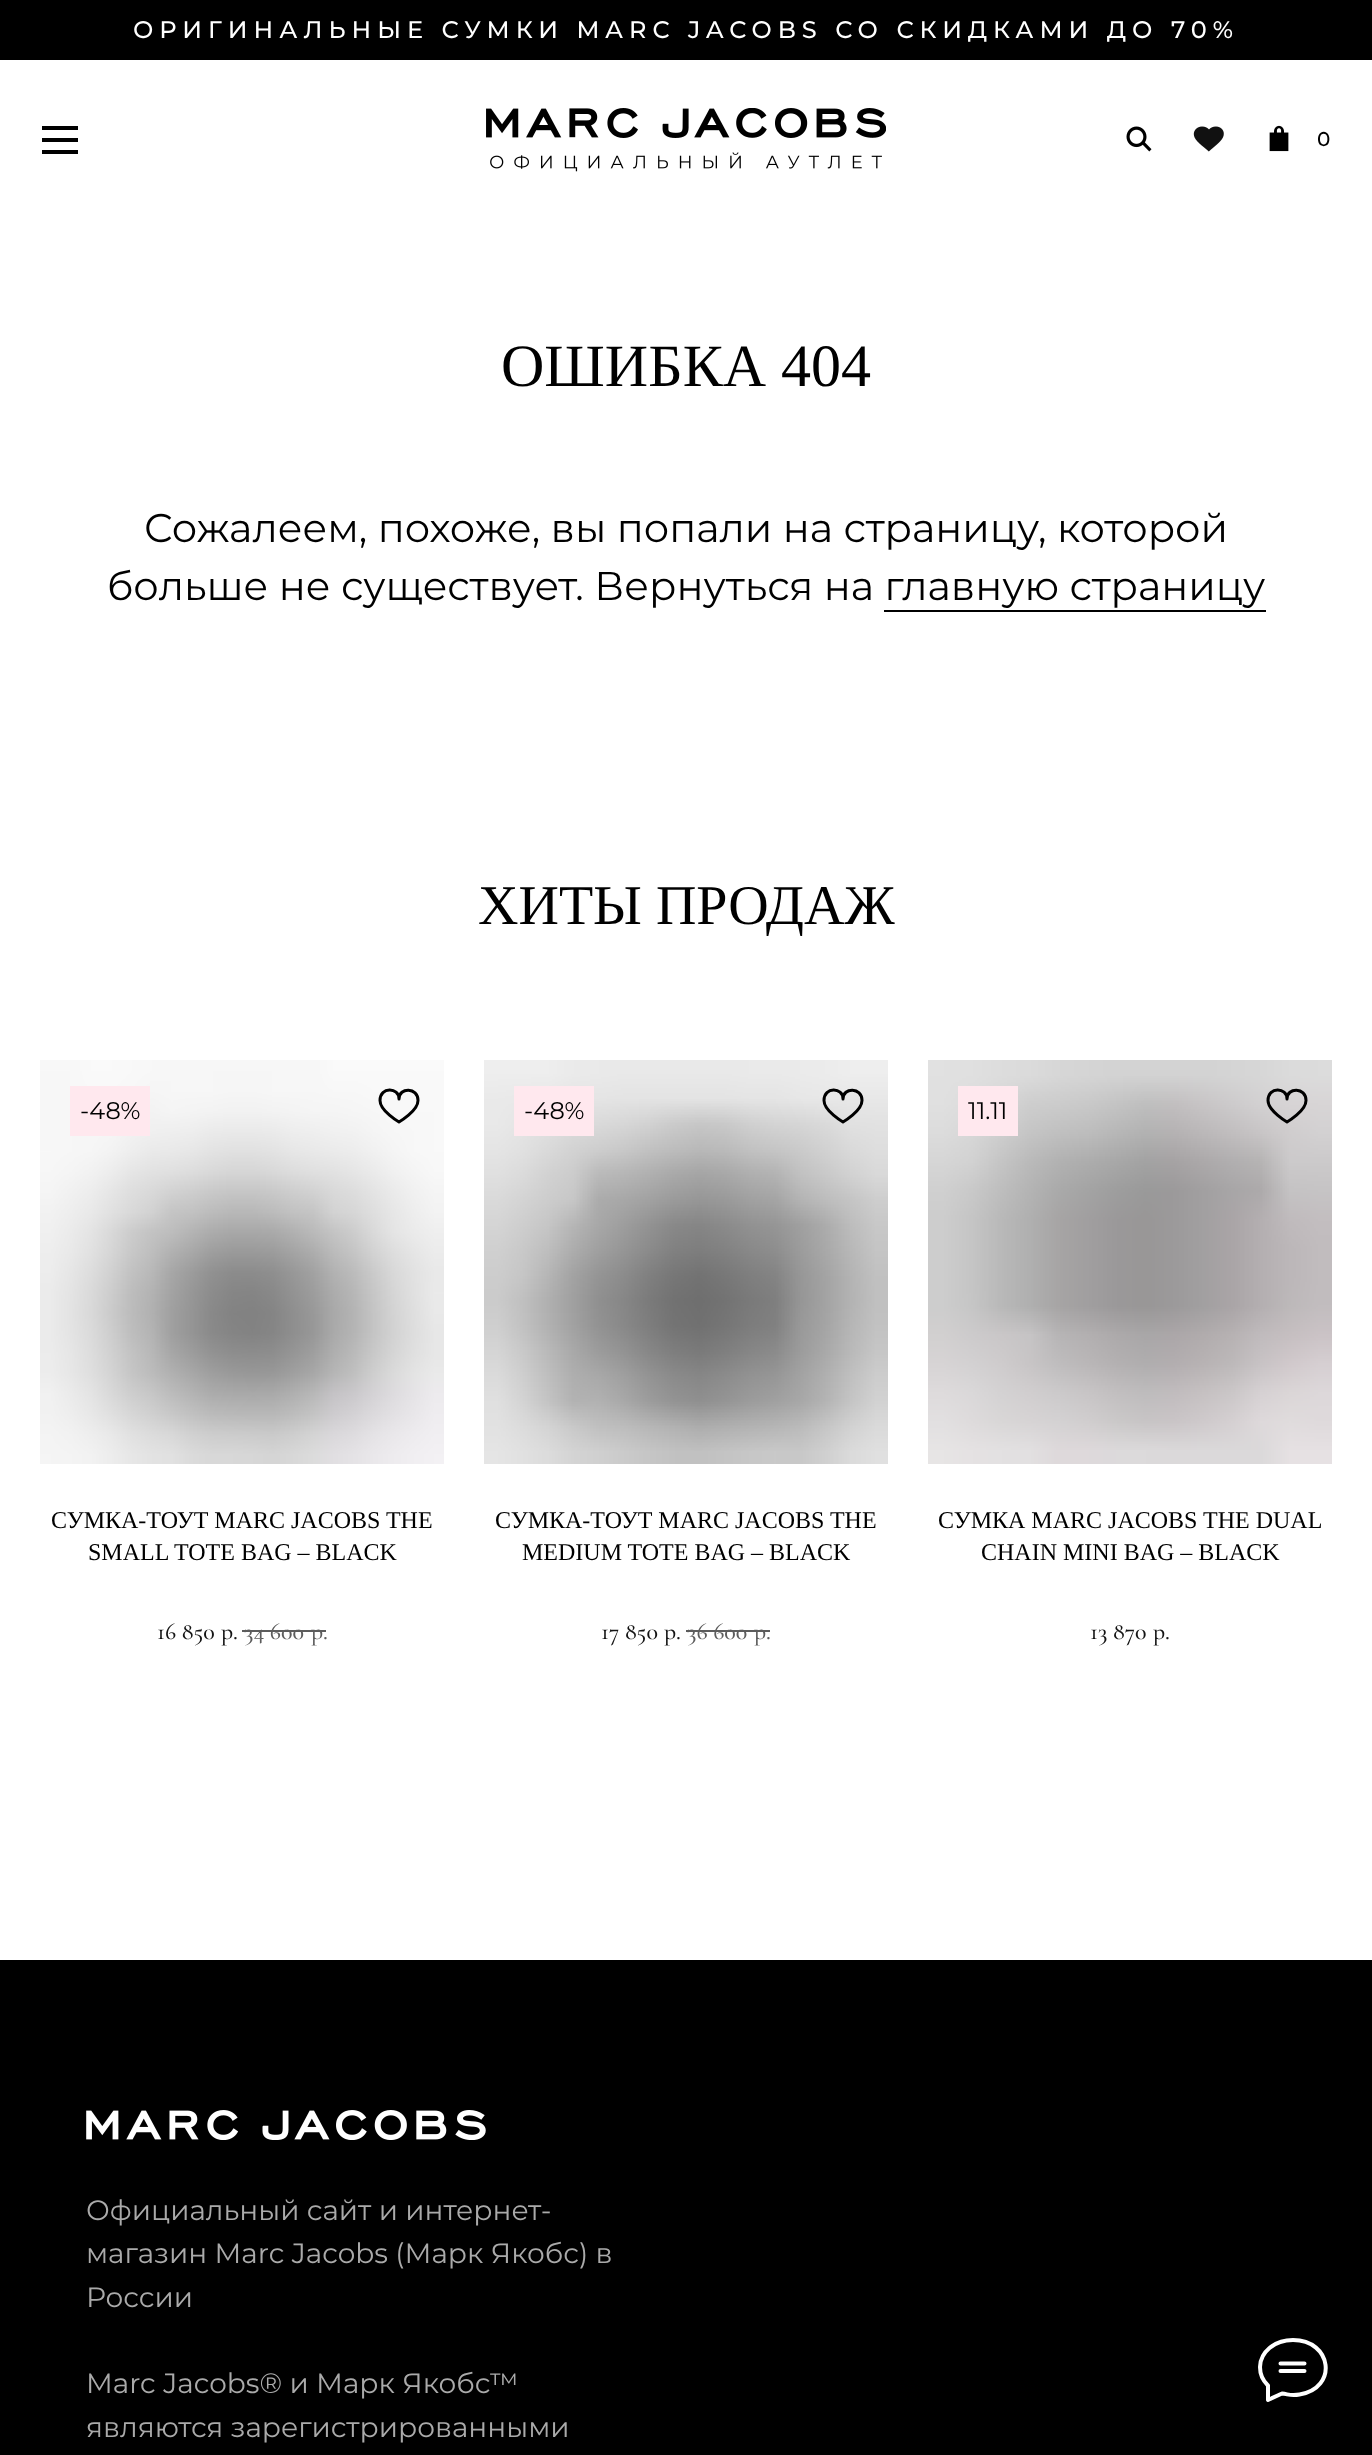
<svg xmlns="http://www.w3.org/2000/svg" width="1372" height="2455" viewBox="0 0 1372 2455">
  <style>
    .t1 { font: 500 24px Montserrat; letter-spacing: 6px; fill: #fff; }
    .t2 { font: 500 20px Montserrat; fill: #000; }
    .t3 { font: 60px Liberation Serif; fill: #000; }
    .t4 { font: 40px Montserrat; fill: #000; }
    .t5 { font: 56px Liberation Serif; fill: #000; }
    .t6 { font: 24px Montserrat; fill: #000; }
    .t7 { font: 24px Liberation Serif; fill: #000; }
    .t8 { font: 500 24px Cormorant Garamond; fill: #141414; }
    .t9 { font: 500 24px Cormorant Garamond; fill: #5c5c5c; }
    .t10 { font: 28px Montserrat; fill: #aaa; }
  </style>
  <rect width="100%" height="100%" fill="#fff"/>
  <rect x="0" y="0" width="1372" height="60" fill="#000"/>
  <text x="133" y="38" class="t1">ОРИГИНАЛЬНЫЕ СУМКИ MARC JACOBS СО СКИДКАМИ ДО 70%</text>
  <rect x="42" y="138" width="36" height="4" fill="#000"/>
  <rect x="42" y="126" width="36" height="4" fill="#000"/>
  <rect x="42" y="150" width="36" height="4" fill="#000"/>
  <image x="486" y="108" width="400" height="64" href="images/1.png"/>
  <image x="1126" y="126" width="26" height="26" href="images/2.png"/>
  <image x="1193" y="126" width="31" height="26" href="images/3.png"/>
  <image x="1269" y="125" width="20" height="27" href="images/4.png"/>
  <text x="1317" y="146" class="t2">0</text>
  <rect x="0" y="1960" width="1372" height="495" fill="#000"/>
  <path d="M1280.5 2363.5H1304.5M1280.5 2371H1304.5M1267.5 2385C1257 2374.5 1257.5 2358 1269.5 2348C1276 2342.5 1284.5 2340 1293 2340C1332 2340 1338.5 2388 1299.5 2394.5C1291 2396 1289.5 2394.5 1282 2393.5L1268 2400V2385.5Z" fill="none" stroke="#fff" stroke-width="4" stroke-linecap="round" stroke-linejoin="round"/>
  <text x="501" y="386" class="t3">ОШИБКА 404</text>
  <text x="144" y="542" class="t4">Сожалеем, похоже, вы попали на страницу, которой</text>
  <text x="107" y="600" class="t4">больше не существует. Вернуться на главную страницу</text>
  <rect x="884" y="610" width="382" height="2" fill="#000"/>
  <text x="478" y="924" class="t5">ХИТЫ ПРОДАЖ</text>
  <image x="40" y="1060" width="404" height="404" href="images/5.png"/>
  <rect x="70" y="1086" width="80" height="50" fill="#ffe8ee"/>
  <text x="80" y="1119" class="t6">-48%</text>
  <path d="M418 1100.5C418 1111 399 1122 399 1122C399 1122 380 1111 380 1100.5C380 1086.5 399 1087 399 1099C399 1087 418 1087 418 1100.5Z" fill="none" stroke="#000" stroke-width="3" stroke-linejoin="round"/>
  <text x="51" y="1528" class="t7">СУМКА-ТОУТ MARC JACOBS THE</text>
  <text x="88" y="1560" class="t7">SMALL TOTE BAG – BLACK</text>
  <text x="157" y="1639" class="t8">16 850</text>
  <text x="221" y="1639" class="t8">р.</text>
  <text x="244" y="1639" class="t9">34 600</text>
  <text x="311" y="1639" class="t9">р.</text>
  <rect x="242" y="1630" width="84" height="2" fill="#5c5c5c"/>
  <image x="484" y="1060" width="404" height="404" href="images/6.png"/>
  <rect x="514" y="1086" width="80" height="50" fill="#ffe8ee"/>
  <text x="524" y="1119" class="t6">-48%</text>
  <path d="M862 1100.5C862 1111 843 1122 843 1122C843 1122 824 1111 824 1100.5C824 1086.5 843 1087 843 1099C843 1087 862 1087 862 1100.5Z" fill="none" stroke="#000" stroke-width="3" stroke-linejoin="round"/>
  <text x="495" y="1528" class="t7">СУМКА-ТОУТ MARC JACOBS THE</text>
  <text x="522" y="1560" class="t7">MEDIUM TOTE BAG – BLACK</text>
  <text x="601" y="1639" class="t8">17 850</text>
  <text x="664" y="1639" class="t8">р.</text>
  <text x="687" y="1639" class="t9">36 600</text>
  <text x="754" y="1639" class="t9">р.</text>
  <rect x="686" y="1630" width="84" height="2" fill="#5c5c5c"/>
  <image x="928" y="1060" width="404" height="404" href="images/7.png"/>
  <rect x="958" y="1086" width="60" height="50" fill="#ffe8ee"/>
  <text x="968" y="1119" class="t6">11.11</text>
  <path d="M1306 1100.5C1306 1111 1287 1122 1287 1122C1287 1122 1268 1111 1268 1100.5C1268 1086.5 1287 1087 1287 1099C1287 1087 1306 1087 1306 1100.5Z" fill="none" stroke="#000" stroke-width="3" stroke-linejoin="round"/>
  <text x="938" y="1528" class="t7">СУМКА MARC JACOBS THE DUAL</text>
  <text x="981" y="1560" class="t7">CHAIN MINI BAG – BLACK</text>
  <text x="1090" y="1639" class="t8">13 870</text>
  <text x="1153" y="1639" class="t8">р.</text>
  <image x="86" y="2110" width="400" height="30" href="images/8.png"/>
  <text x="86" y="2220" class="t10">Официальный сайт и интернет-</text>
  <text x="86" y="2263" class="t10">магазин Marc Jacobs (Марк Якобс) в</text>
  <text x="86" y="2307" class="t10">России</text>
  <text x="86" y="2393" class="t10">Marc Jacobs® и Марк Якобс™</text>
  <text x="86" y="2437" class="t10">являются зарегистрированными</text>
</svg>
